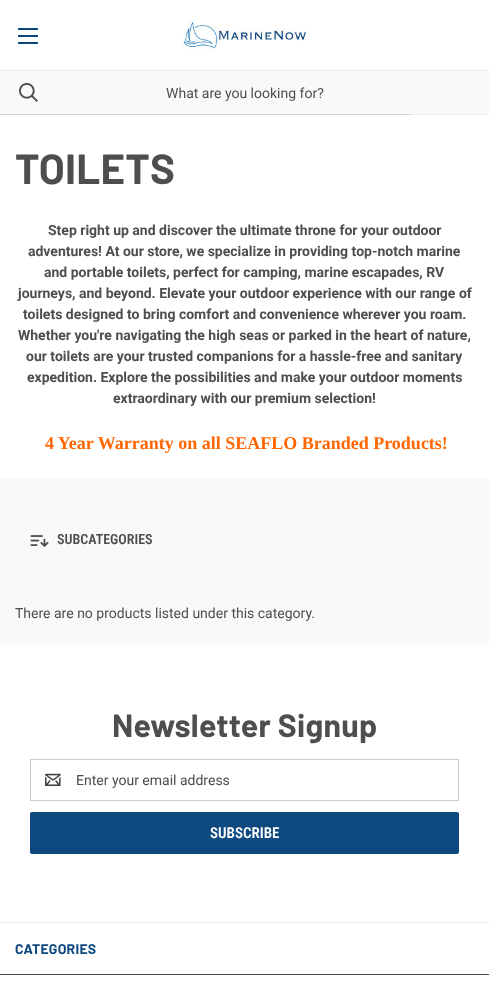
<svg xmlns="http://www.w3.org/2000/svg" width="489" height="994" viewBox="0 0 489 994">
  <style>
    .t1 { font: 14px Roboto; fill: #4e4e4e; }
    .t2 { font: bold 42px Barlow; letter-spacing: 0.25px; fill: #4e4e4e; }
    .t3 { font: bold 14px Roboto; fill: #4e4e4e; }
    .t4 { font: bold 18px Liberation Serif; fill: #f60; }
    .t5 { font: 600 14px Roboto Condensed; fill: #4e4e4e; }
    .t6 { font: bold 32px Barlow; letter-spacing: 0.25px; fill: #4e4e4e; }
    .t7 { font: 600 15px Roboto Condensed; fill: #fff; }
    .t8 { font: bold 14px Barlow; letter-spacing: 0.25px; fill: #0d487e; }
  </style>
  <rect width="100%" height="100%" fill="#fff"/>
  <rect x="410" y="114" width="79" height="1" fill="#ebebeb"/>
  <rect x="18" y="35" width="20" height="2" fill="#0d487e"/>
  <rect x="18" y="28" width="20" height="2" fill="#0d487e"/>
  <rect x="18" y="42" width="20" height="2" fill="#0d487e"/>
  <image x="182" y="20" width="125" height="30" href="images/1.png"/>
  <rect x="0" y="71" width="489" height="43" fill="#f9f9f9"/>
  <image x="19" y="83" width="19" height="19" href="images/2.png"/>
  <rect x="0" y="70" width="489" height="1" fill="#ebebeb"/>
  <text x="166" y="98" class="t1">What are you looking for?</text>
  <rect x="0" y="114" width="410" height="1" fill="#d2d2d2"/>
  <text x="15" y="184" class="t2">TOILETS</text>
  <text x="48" y="235" class="t3">Step right up and discover the ultimate throne for your outdoor</text>
  <text x="28" y="256" class="t3">adventures! At our store, we specialize in providing top-notch marine</text>
  <text x="44" y="277" class="t3">and portable toilets, perfect for camping, marine escapades, RV</text>
  <text x="18" y="298" class="t3">journeys, and beyond. Elevate your outdoor experience with our range of</text>
  <text x="23" y="319" class="t3">toilets designed to bring comfort and convenience wherever you roam.</text>
  <text x="18" y="340" class="t3">Whether you're navigating the high seas or parked in the heart of nature,</text>
  <text x="26" y="361" class="t3">our toilets are your trusted companions for a hassle-free and sanitary</text>
  <text x="27" y="382" class="t3">expedition. Explore the possibilities and make your outdoor moments</text>
  <text x="113" y="403" class="t3">extraordinary with our premium selection!</text>
  <text x="45" y="449" class="t4">4 Year Warranty on all SEAFLO Branded Products!</text>
  <rect x="0" y="478" width="489" height="167" fill="#f9f9f9"/>
  <image x="30" y="535" width="19" height="12" href="images/3.png"/>
  <text x="57" y="544" class="t5">SUBCATEGORIES</text>
  <text x="15" y="618" class="t1">There are no products listed under this category.</text>
  <text x="112" y="737" class="t6">Newsletter Signup</text>
  <rect x="30.5" y="759.5" width="428" height="41" fill="none" stroke="#ccc"/>
  <image x="45" y="773" width="16" height="13" href="images/4.png"/>
  <text x="76" y="785" class="t1">Enter your email address</text>
  <rect x="30" y="812" width="429" height="42" rx="2" fill="#0d487e"/>
  <text x="210" y="838" class="t7">SUBSCRIBE</text>
  <rect x="0" y="922" width="489" height="1" fill="#ebebeb"/>
  <rect x="0" y="974" width="489" height="1" fill="#4a4a4a"/>
  <text x="15" y="954" class="t8">CATEGORIES</text>
</svg>
